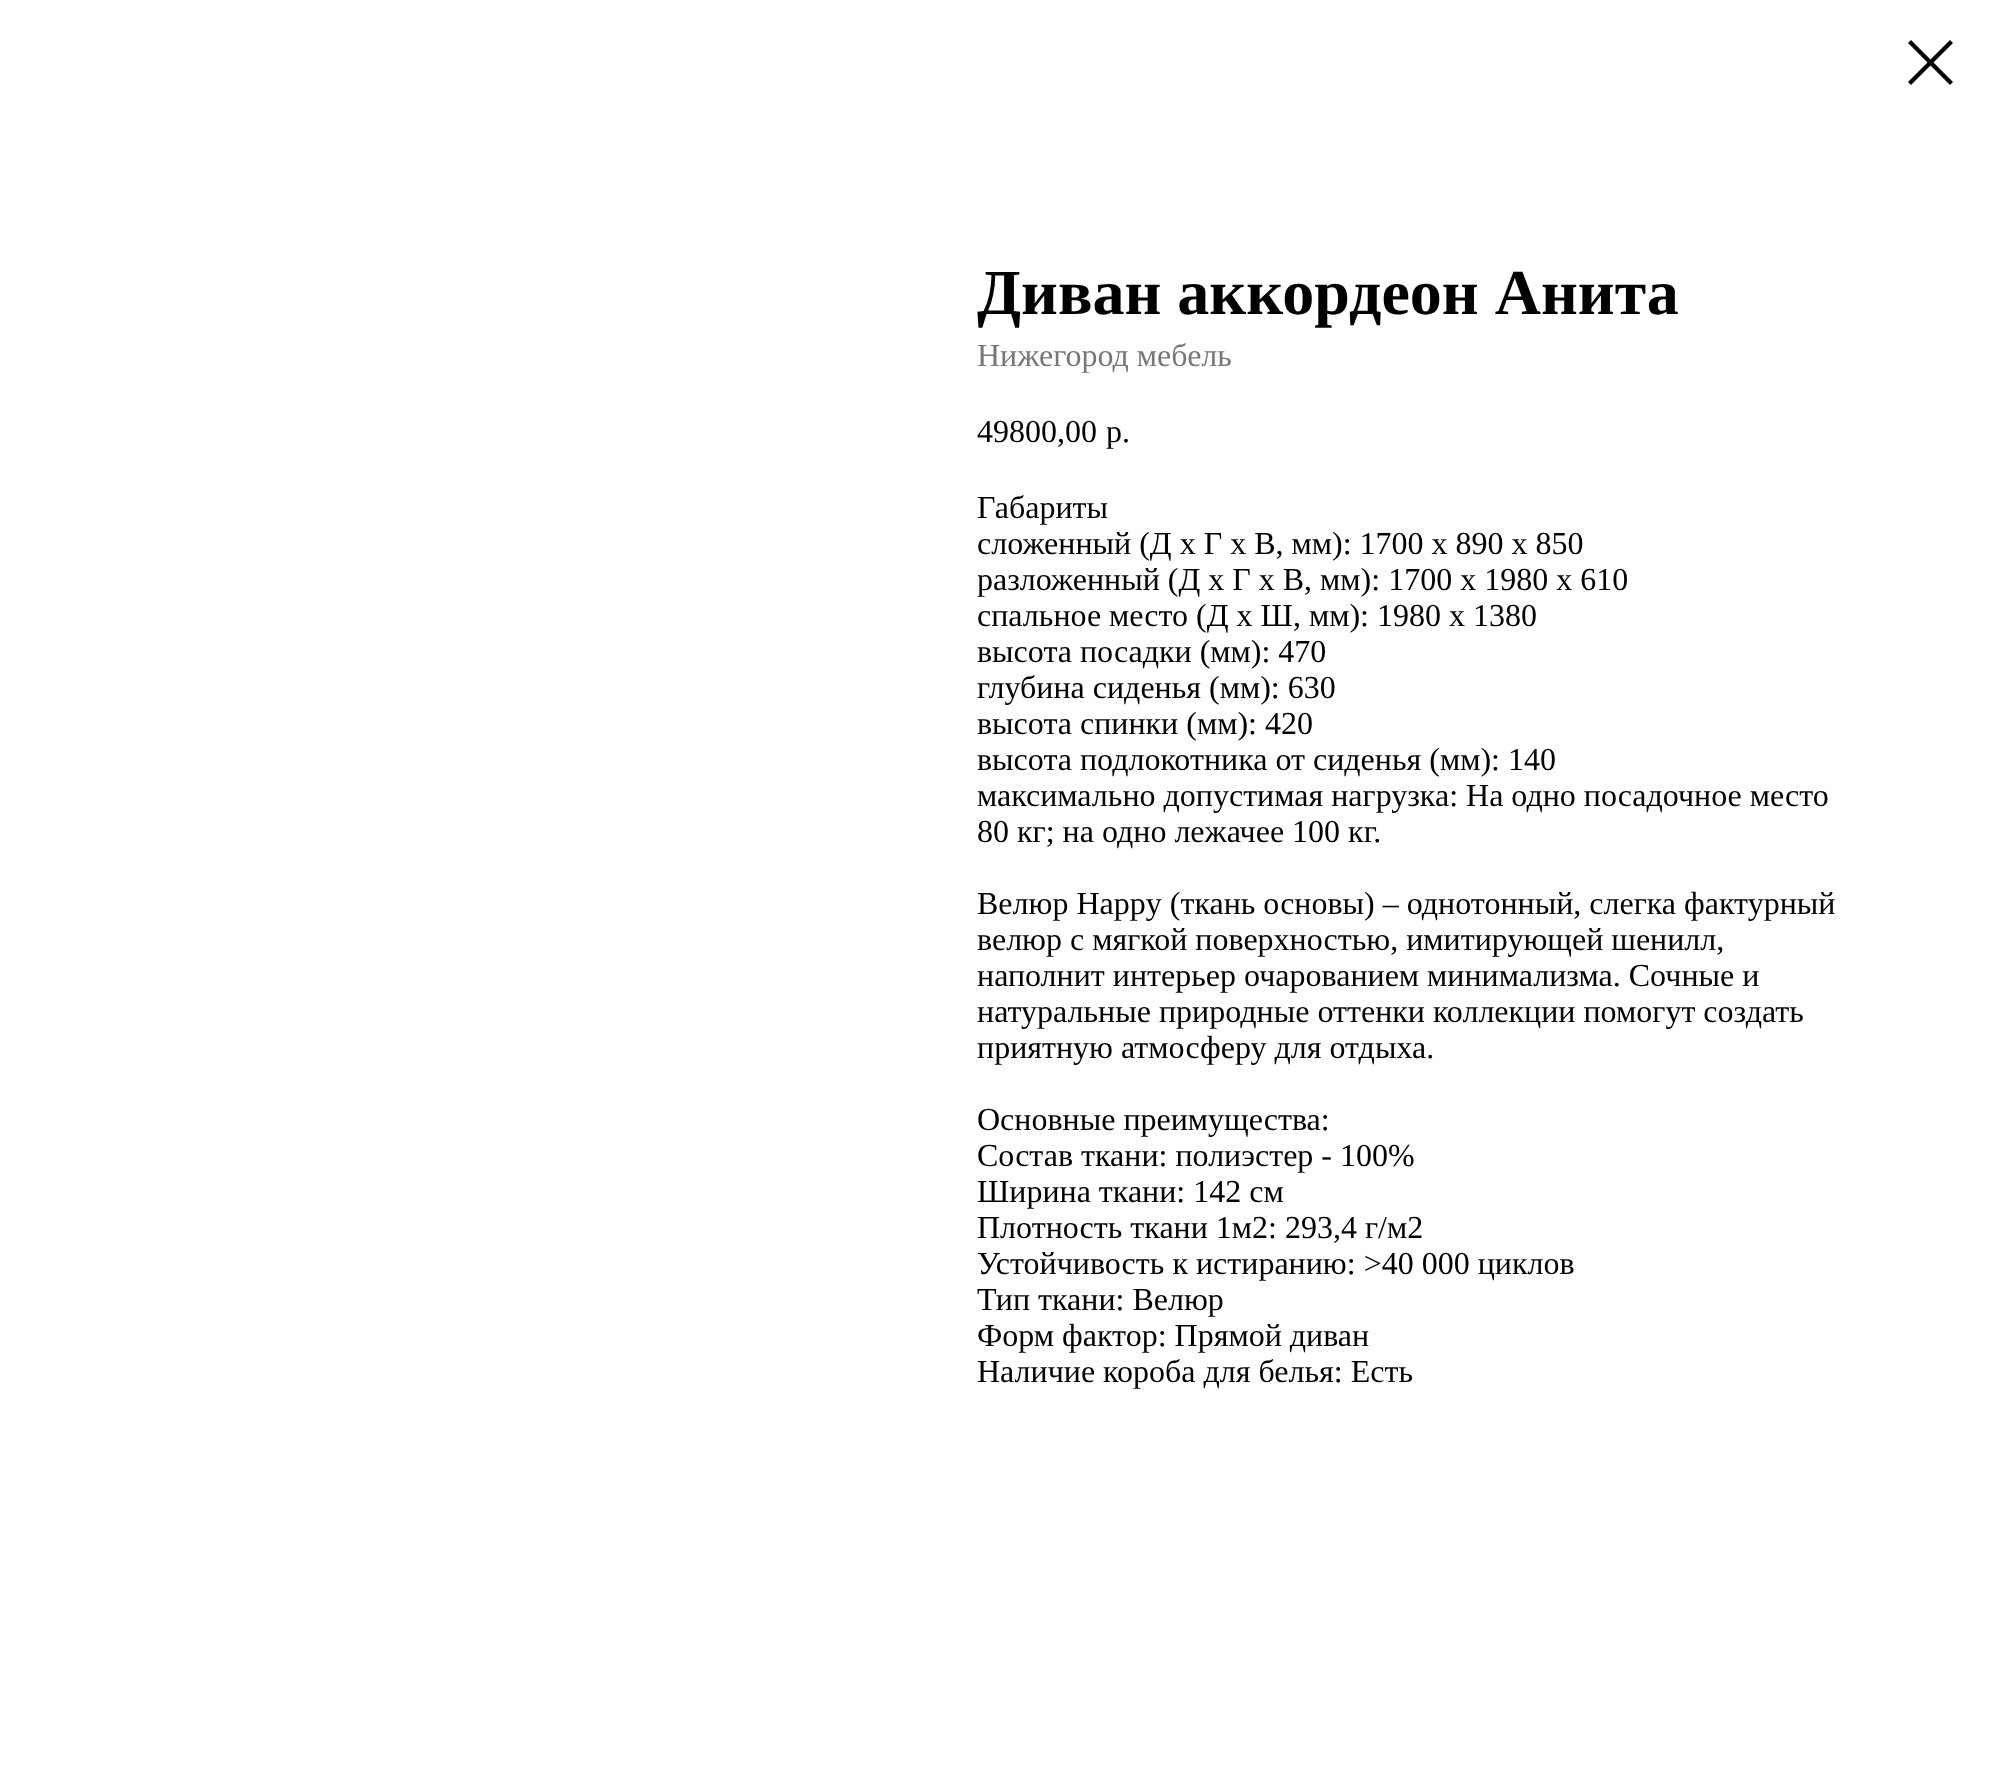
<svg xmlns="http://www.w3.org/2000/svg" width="1993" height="1769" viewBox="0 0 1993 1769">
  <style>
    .t1 { font: bold 64px Liberation Serif; fill: #000; }
    .t2 { font: 32px Liberation Serif; fill: #777; }
    .t3 { font: 32px Liberation Serif; fill: #000; }
  </style>
  <rect width="100%" height="100%" fill="#fff"/>
  <path d="M1908 43L1911 40L1953 82L1950 85Z" fill="#000" fill-rule="evenodd"/>
  <path d="M1950 40L1953 43L1911 85L1908 82Z" fill="#000" fill-rule="evenodd"/>
  <text x="977" y="314" class="t1">Диван аккордеон Анита</text>
  <text x="977" y="366" class="t2">Нижегород мебель</text>
  <text x="977" y="442" class="t3">49800,00</text>
  <text x="1106" y="442" class="t3">р.</text>
  <text x="977" y="518" class="t3">Габариты</text>
  <text x="977" y="554" class="t3">сложенный (Д x Г х В, мм): 1700 x 890 x 850</text>
  <text x="977" y="590" class="t3">разложенный (Д x Г х В, мм): 1700 x 1980 x 610</text>
  <text x="977" y="626" class="t3">спальное место (Д x Ш, мм): 1980 x 1380</text>
  <text x="977" y="662" class="t3">высота посадки (мм): 470</text>
  <text x="977" y="698" class="t3">глубина сиденья (мм): 630</text>
  <text x="977" y="734" class="t3">высота спинки (мм): 420</text>
  <text x="977" y="770" class="t3">высота подлокотника от сиденья (мм): 140</text>
  <text x="977" y="806" class="t3">максимально допустимая нагрузка: На одно посадочное место</text>
  <text x="977" y="842" class="t3">80 кг; на одно лежачее 100 кг.</text>
  <text x="977" y="914" class="t3">Велюр Happy (ткань основы) – однотонный, слегка фактурный</text>
  <text x="977" y="950" class="t3">велюр с мягкой поверхностью, имитирующей шенилл,</text>
  <text x="977" y="986" class="t3">наполнит интерьер очарованием минимализма. Сочные и</text>
  <text x="977" y="1022" class="t3">натуральные природные оттенки коллекции помогут создать</text>
  <text x="977" y="1058" class="t3">приятную атмосферу для отдыха.</text>
  <text x="977" y="1130" class="t3">Основные преимущества:</text>
  <text x="977" y="1166" class="t3">Состав ткани: полиэстер - 100%</text>
  <text x="977" y="1202" class="t3">Ширина ткани: 142 см</text>
  <text x="977" y="1238" class="t3">Плотность ткани 1м2: 293,4 г/м2</text>
  <text x="977" y="1274" class="t3">Устойчивость к истиранию: &gt;40 000 циклов</text>
  <text x="977" y="1310" class="t3">Тип ткани: Велюр</text>
  <text x="977" y="1346" class="t3">Форм фактор: Прямой диван</text>
  <text x="977" y="1382" class="t3">Наличие короба для белья: Есть</text>
</svg>
